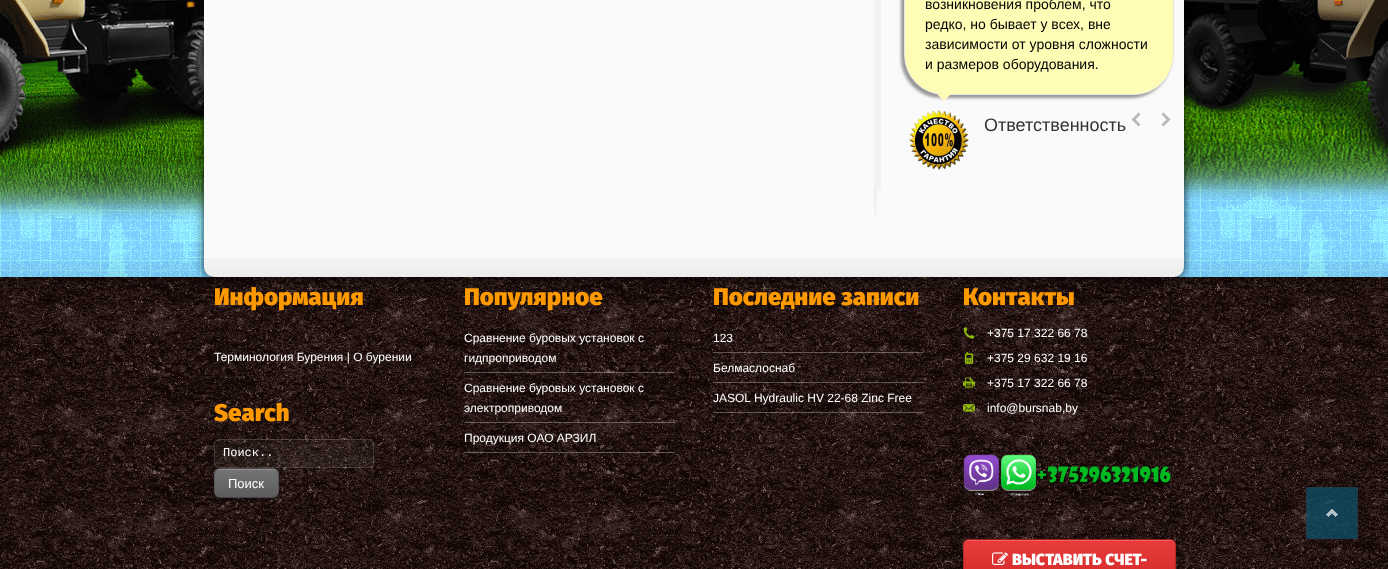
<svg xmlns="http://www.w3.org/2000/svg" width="1388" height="569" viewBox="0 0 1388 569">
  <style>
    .t1 { font: 14px Liberation Sans; fill: #000; }
    .t2 { font: 18px Liberation Sans; fill: #333; }
    .t3 { font: 900 24px Fira Sans; fill: #f90; }
    .t4 { font: 12px Liberation Sans; fill: #fff; }
    .t5 { font: 12px Liberation Mono; fill: #fff; }
    .t6 { font: 13px Liberation Sans; fill: #fff; }
    .t7 { font: 900 16px Fira Sans; fill: #fff; }
  </style>
  <defs>
    <clipPath id="clip1"><rect x="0" y="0" width="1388" height="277"/></clipPath>
    <linearGradient id="g1" gradientUnits="userSpaceOnUse" x1="694" y1="247" x2="694" y2="277"><stop offset="0" stop-color="#000" stop-opacity="0"/><stop offset="1" stop-color="#000" stop-opacity="0.06"/></linearGradient>
    <clipPath id="clip2"><rect x="204" y="287" width="980" height="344"/></clipPath>
    <clipPath id="clip3"><rect x="214" y="468" width="65" height="30" rx="6"/></clipPath>
    <linearGradient id="g2" gradientUnits="userSpaceOnUse" x1="247" y1="469" x2="247" y2="441"><stop offset="0" stop-color="#000" stop-opacity="0.1"/><stop offset="1" stop-color="#fff" stop-opacity="0.1"/></linearGradient>
    <linearGradient id="g3" gradientUnits="userSpaceOnUse" x1="247" y1="497" x2="247" y2="469"><stop offset="0" stop-color="#000" stop-opacity="0.1"/><stop offset="1" stop-color="#fff" stop-opacity="0.1"/></linearGradient>
    <linearGradient id="g4" gradientUnits="userSpaceOnUse" x1="247" y1="525" x2="247" y2="497"><stop offset="0" stop-color="#000" stop-opacity="0.1"/><stop offset="1" stop-color="#fff" stop-opacity="0.1"/></linearGradient>
    <clipPath id="clip4"><rect x="963" y="539" width="213" height="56" rx="6"/></clipPath>
    <linearGradient id="g5" gradientUnits="userSpaceOnUse" x1="1070" y1="540" x2="1070" y2="486"><stop offset="0" stop-color="#000" stop-opacity="0.1"/><stop offset="1" stop-color="#fff" stop-opacity="0.1"/></linearGradient>
    <linearGradient id="g6" gradientUnits="userSpaceOnUse" x1="1070" y1="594" x2="1070" y2="540"><stop offset="0" stop-color="#000" stop-opacity="0.1"/><stop offset="1" stop-color="#fff" stop-opacity="0.1"/></linearGradient>
  </defs>
  <rect width="100%" height="100%" fill="#fff"/>
  <image x="0" y="0" width="1388" height="277" href="images/1.png"/>
  <image x="0" y="277" width="1388" height="292" href="images/6.png"/>
  <image x="0" y="277" width="1388" height="8" href="images/7.png"/>
  <g clip-path="url(#clip1)">
    <rect x="204" y="-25" width="980" height="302" rx="10" fill="#000000cc" filter="blur(5px)"/>
  </g>
  <rect x="204" y="-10" width="980" height="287" rx="10" fill="#fafafa"/>
  <rect x="874" y="0" width="7" height="190" fill="#f3f3f3"/>
  <rect x="901" y="-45" width="270" height="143" rx="40" fill="#00000066" filter="blur(1.5px)"/>
  <rect x="904.5" y="-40.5" width="269" height="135" rx="39.5" fill="#fffcb5" stroke="#e5e5e5"/>
  <text x="925" y="9" class="t1">возникновения проблем, что</text>
  <text x="925" y="29" class="t1">редко, но бывает у всех, вне</text>
  <text x="925" y="49" class="t1">зависимости от уровня сложности</text>
  <text x="925" y="69" class="t1">и размеров оборудования.</text>
  <path d="M937 94H951L944 101Z" fill="#fffcb5"/>
  <image x="909" y="110" width="60" height="60" href="images/2.png"/>
  <text x="984" y="131" class="t2">Ответственность</text>
  <image x="1131" y="112" width="10" height="15" href="images/3.png"/>
  <image x="1161" y="112" width="10" height="15" href="images/4.png"/>
  <image x="874" y="190" width="4" height="29" href="images/5.png"/>
  <rect x="0" y="258" width="1388" height="19" fill="url(#g1)"/>
  <g clip-path="url(#clip2)">
    <text x="214" y="305" class="t3">Информация</text>
  </g>
  <text x="214" y="361" class="t4">Терминология Бурения | О бурении</text>
  <text x="214" y="421" class="t3">Search</text>
  <rect x="214.5" y="439.5" width="159" height="28" rx="4.5" fill="none" stroke="#ffffff26"/>
  <text x="223" y="456" class="t5">Поиск..</text>
  <rect x="214" y="469" width="65" height="30" rx="6" fill="#00000033" filter="blur(1px)"/>
  <rect x="214" y="468" width="65" height="30" rx="6" fill="#666"/>
  <g clip-path="url(#clip3)">
    <rect x="214" y="468" width="65" height="1" fill="url(#g2)"/>
    <rect x="214" y="469" width="65" height="28" fill="url(#g3)"/>
    <rect x="214" y="497" width="65" height="1" fill="url(#g4)"/>
  </g>
  <path d="M277 496C276 497 274.5 497.5 273 497.5H220C218.5 497.5 217 497 216 496" fill="none" stroke="#00000066"/>
  <path d="M216 496C213 493 214.5 486.5 214.5 483C214.5 468.5 214 468.5 229 468.5H264C279 468.5 278.5 468.5 278.5 483C278.5 486.5 280 493 277 496" fill="none" stroke="#00000033"/>
  <rect x="218" y="469" width="57" height="1" fill="#ffffff33"/>
  <text x="228" y="488" class="t6">Поиск</text>
  <text x="464" y="305" class="t3">Популярное</text>
  <rect x="464" y="372" width="211" height="1" fill="#ffffff4d"/>
  <text x="464" y="342" class="t4">Сравнение буровых установок с</text>
  <text x="464" y="362" class="t4">гидпроприводом</text>
  <rect x="464" y="422" width="211" height="1" fill="#ffffff4d"/>
  <text x="464" y="392" class="t4">Сравнение буровых установок с</text>
  <text x="464" y="412" class="t4">электроприводом</text>
  <rect x="464" y="452" width="211" height="1" fill="#ffffff4d"/>
  <text x="464" y="442" class="t4">Продукция ОАО АРЗИЛ</text>
  <text x="713" y="305" class="t3">Последние записи</text>
  <rect x="713" y="352" width="211" height="1" fill="#ffffff4d"/>
  <text x="713" y="342" class="t4">123</text>
  <rect x="713" y="382" width="211" height="1" fill="#ffffff4d"/>
  <text x="713" y="372" class="t4">Белмаслоснаб</text>
  <rect x="713" y="412" width="211" height="1" fill="#ffffff4d"/>
  <text x="713" y="402" class="t4">JASOL Hydraulic HV 22-68 Zinc Free</text>
  <text x="963" y="305" class="t3">Контакты</text>
  <image x="963" y="327" width="12" height="12" href="images/8.png"/>
  <text x="987" y="337" class="t4">+375 17 322 66 78</text>
  <image x="964" y="351" width="10" height="13" href="images/9.png"/>
  <text x="987" y="362" class="t4">+375 29 632 19 16</text>
  <image x="963" y="377" width="12" height="12" href="images/10.png"/>
  <text x="987" y="387" class="t4">+375 17 322 66 78</text>
  <image x="963" y="404" width="12" height="8" href="images/11.png"/>
  <text x="987" y="412" class="t4">info@bursnab,by</text>
  <image x="963" y="454" width="209" height="43" href="images/12.png"/>
  <rect x="963" y="540" width="213" height="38" rx="6" fill="#00000033" filter="blur(1px)"/>
  <rect x="963" y="539" width="213" height="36" rx="6" fill="#e62727"/>
  <g clip-path="url(#clip4)">
    <rect x="963" y="539" width="213" height="1" fill="url(#g5)"/>
    <rect x="963" y="540" width="213" height="29" fill="url(#g6)"/>
  </g>
  <path d="M965 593C964 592 963.5 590.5 963.5 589V545C963.5 543.5 964 542 965 541C966 540 967.5 539.5 969 539.5H1170C1171.5 539.5 1173 540 1174 541C1175 542 1175.5 543.5 1175.5 545V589C1175.5 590.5 1175 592 1174 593" fill="none" stroke="#00000033"/>
  <rect x="967" y="540" width="205" height="1" fill="#ffffff33"/>
  <image x="992" y="552" width="16" height="13" href="images/13.png"/>
  <text x="1012" y="565" class="t7">ВЫСТАВИТЬ СЧЕТ-</text>
  <rect x="1306" y="487" width="52" height="52" rx="1" fill="#0d506bbf"/>
  <image x="1326" y="509" width="12" height="8" href="images/14.png"/>
  <rect x="1306.5" y="487.5" width="51" height="51" rx="0.5" fill="none" stroke="#32323261"/>
</svg>
